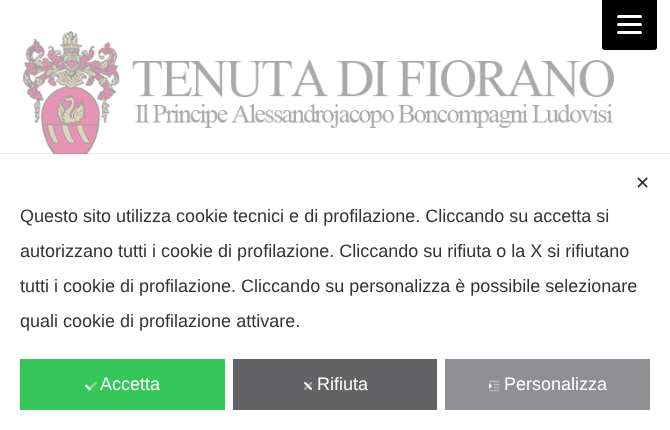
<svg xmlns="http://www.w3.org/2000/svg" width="670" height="430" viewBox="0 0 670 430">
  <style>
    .t1 { font: 18px DejaVu Sans; fill: #333; }
    .t2 { font: 18px Liberation Sans; fill: #333; }
    .t3 { font: 18px Liberation Sans; fill: #fff; }
  </style>
  <rect width="100%" height="100%" fill="#fff"/>
  <image x="23" y="31" width="591" height="123" href="images/1.png"/>
  <rect x="602" y="-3" width="55" height="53" rx="3" fill="#000"/>
  <rect x="617" y="23" width="25" height="3" rx="1.5" fill="#fff"/>
  <rect x="617" y="15" width="25" height="3" rx="1.5" fill="#fff"/>
  <rect x="617" y="31" width="25" height="3" rx="1.5" fill="#fff"/>
  <rect x="-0.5" y="153.5" width="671" height="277" fill="none" stroke="#00000014"/>
  <text x="635" y="189" class="t1">✕</text>
  <text x="20" y="222" class="t2">Questo sito utilizza cookie tecnici e di profilazione. Cliccando su accetta si</text>
  <text x="20" y="257" class="t2">autorizzano tutti i cookie di profilazione. Cliccando su rifiuta o la X si rifiutano</text>
  <text x="20" y="292" class="t2">tutti i cookie di profilazione. Cliccando su personalizza è possibile selezionare</text>
  <text x="20" y="327" class="t2">quali cookie di profilazione attivare.</text>
  <rect x="20" y="359" width="205" height="51" fill="#34c659"/>
  <image x="85" y="381" width="12" height="10" href="images/2.png"/>
  <text x="100" y="390" class="t3">Accetta</text>
  <rect x="233" y="359" width="204" height="51" fill="#636366"/>
  <image x="304" y="381" width="8" height="9" href="images/3.png"/>
  <text x="317" y="390" class="t3">Rifiuta</text>
  <rect x="445" y="359" width="205" height="51" fill="#8e8e93"/>
  <image x="489" y="380" width="11" height="12" href="images/4.png"/>
  <text x="504" y="390" class="t3">Personalizza</text>
</svg>
